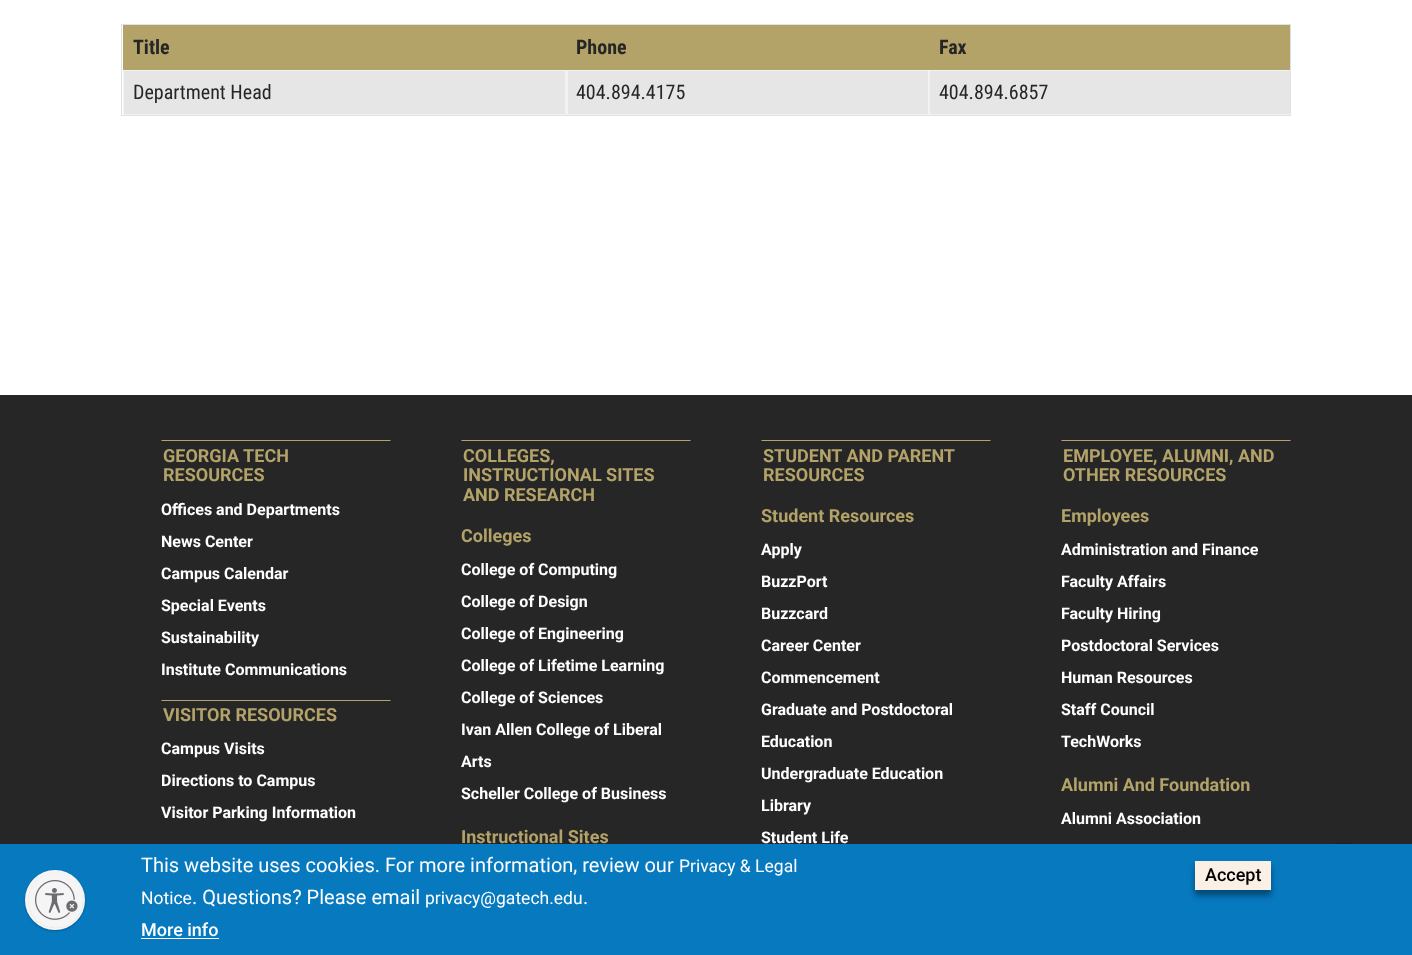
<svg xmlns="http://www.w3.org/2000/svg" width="1412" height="955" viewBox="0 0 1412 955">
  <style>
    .t1 { font: bold 20px Roboto Condensed; fill: #262626; }
    .t2 { font: 20px Roboto Condensed; fill: #262626; }
    .t3 { font: bold 18px Roboto; fill: #b3a369; }
    .t4 { font: bold 16px Roboto; fill: #fff; }
    .t5 { font: 20px Roboto; fill: #fff; }
    .t6 { font: 17.5px Roboto; fill: #fff; }
    .t7 { font: 500 18px Roboto; fill: #fff; }
    .t8 { font: 500 18px Roboto; fill: #000; }
  </style>
  <defs>
    <clipPath id="clip1"><rect x="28" y="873" width="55" height="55" rx="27.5"/></clipPath>
  </defs>
  <rect width="100%" height="100%" fill="#fff"/>
  <rect x="121" y="24" width="1170" height="1" fill="#dee2e6"/>
  <rect x="1290" y="24" width="1" height="92" fill="#dee2e6"/>
  <rect x="121" y="115" width="1170" height="1" fill="#dee2e6"/>
  <rect x="121" y="24" width="1" height="92" fill="#dee2e6"/>
  <rect x="123" y="25" width="1167" height="45" fill="#b3a369"/>
  <text x="133" y="54" class="t1">Title</text>
  <text x="576" y="54" class="t1">Phone</text>
  <text x="939" y="54" class="t1">Fax</text>
  <rect x="123" y="70" width="1167" height="45" fill="#f2f2f2"/>
  <rect x="124" y="71" width="441" height="43" fill="#e6e6e6"/>
  <text x="133" y="99" class="t2">Department Head</text>
  <rect x="568" y="71" width="360" height="43" fill="#e6e6e6"/>
  <text x="576" y="99" class="t2">404.894.4175</text>
  <rect x="930" y="71" width="360" height="43" fill="#e6e6e6"/>
  <text x="939" y="99" class="t2">404.894.6857</text>
  <rect x="0" y="395" width="1412" height="449" fill="#262626"/>
  <path d="M161 440H391L390 441H162Z" fill="#b3a369"/>
  <text x="163" y="462" class="t3">GEORGIA TECH</text>
  <text x="163" y="481" class="t3">RESOURCES</text>
  <text x="161" y="515" class="t4">Offices and Departments</text>
  <text x="161" y="547" class="t4">News Center</text>
  <text x="161" y="579" class="t4">Campus Calendar</text>
  <text x="161" y="611" class="t4">Special Events</text>
  <text x="161" y="643" class="t4">Sustainability</text>
  <text x="161" y="675" class="t4">Institute Communications</text>
  <path d="M161 700H391L390 701H162Z" fill="#b3a369"/>
  <text x="163" y="721" class="t3">VISITOR RESOURCES</text>
  <text x="161" y="754" class="t4">Campus Visits</text>
  <text x="161" y="786" class="t4">Directions to Campus</text>
  <text x="161" y="818" class="t4">Visitor Parking Information</text>
  <path d="M461 440H691L690 441H462Z" fill="#b3a369"/>
  <text x="463" y="462" class="t3">COLLEGES,</text>
  <text x="463" y="481" class="t3">INSTRUCTIONAL SITES</text>
  <text x="463" y="501" class="t3">AND RESEARCH</text>
  <text x="461" y="542" class="t3">Colleges</text>
  <text x="461" y="575" class="t4">College of Computing</text>
  <text x="461" y="607" class="t4">College of Design</text>
  <text x="461" y="639" class="t4">College of Engineering</text>
  <text x="461" y="671" class="t4">College of Lifetime Learning</text>
  <text x="461" y="703" class="t4">College of Sciences</text>
  <text x="461" y="735" class="t4">Ivan Allen College of Liberal</text>
  <text x="461" y="767" class="t4">Arts</text>
  <text x="461" y="799" class="t4">Scheller College of Business</text>
  <text x="461" y="843" class="t3">Instructional Sites</text>
  <path d="M761 440H991L990 441H762Z" fill="#b3a369"/>
  <text x="763" y="462" class="t3">STUDENT AND PARENT</text>
  <text x="763" y="481" class="t3">RESOURCES</text>
  <text x="761" y="522" class="t3">Student Resources</text>
  <text x="761" y="555" class="t4">Apply</text>
  <text x="761" y="587" class="t4">BuzzPort</text>
  <text x="761" y="619" class="t4">Buzzcard</text>
  <text x="761" y="651" class="t4">Career Center</text>
  <text x="761" y="683" class="t4">Commencement</text>
  <text x="761" y="715" class="t4">Graduate and Postdoctoral</text>
  <text x="761" y="747" class="t4">Education</text>
  <text x="761" y="779" class="t4">Undergraduate Education</text>
  <text x="761" y="811" class="t4">Library</text>
  <text x="761" y="843" class="t4">Student Life</text>
  <path d="M1061 440H1291L1290 441H1062Z" fill="#b3a369"/>
  <text x="1063" y="462" class="t3">EMPLOYEE, ALUMNI, AND</text>
  <text x="1063" y="481" class="t3">OTHER RESOURCES</text>
  <text x="1061" y="522" class="t3">Employees</text>
  <text x="1061" y="555" class="t4">Administration and Finance</text>
  <text x="1061" y="587" class="t4">Faculty Affairs</text>
  <text x="1061" y="619" class="t4">Faculty Hiring</text>
  <text x="1061" y="651" class="t4">Postdoctoral Services</text>
  <text x="1061" y="683" class="t4">Human Resources</text>
  <text x="1061" y="715" class="t4">Staff Council</text>
  <text x="1061" y="747" class="t4">TechWorks</text>
  <text x="1061" y="791" class="t3">Alumni And Foundation</text>
  <text x="1061" y="824" class="t4">Alumni Association</text>
  <image x="1333" y="843" width="21" height="1" href="images/1.png"/>
  <rect x="0" y="844" width="1412" height="111" fill="#0779bf"/>
  <rect x="25" y="871" width="60" height="60" rx="30" fill="#0000003d" filter="blur(1px)"/>
  <circle cx="55" cy="900" r="28.5" fill="#ebebf0" stroke="#f5f5f5" stroke-width="3"/>
  <g clip-path="url(#clip1)">
    <rect x="28" y="874" width="55" height="55" rx="27.5" fill="#0000003d" filter="blur(1px)"/>
  </g>
  <circle cx="55.5" cy="900.5" r="27.5" fill="#f5f5f5"/>
  <image x="35" y="880" width="43" height="40" href="images/2.png"/>
  <text x="141" y="872" class="t5">This website uses cookies. For more information, review our</text>
  <text x="679" y="872" class="t6">Privacy &amp; Legal</text>
  <text x="141" y="904" class="t6">Notice</text>
  <text x="192" y="904" class="t5">. Questions? Please email</text>
  <text x="425" y="904" class="t6">privacy@gatech.edu</text>
  <text x="583" y="904" class="t5">.</text>
  <text x="141" y="936" class="t7">More info</text>
  <rect x="141" y="938" width="78" height="1" fill="#fff"/>
  <rect x="1195" y="868" width="76" height="28" fill="#00000030" filter="blur(3px)"/>
  <rect x="1195" y="866" width="76" height="29" fill="#0000003d" filter="blur(2.5px)"/>
  <rect x="1195" y="861" width="76" height="29" fill="#faf0e6"/>
  <text x="1205" y="881" class="t8">Accept</text>
</svg>
